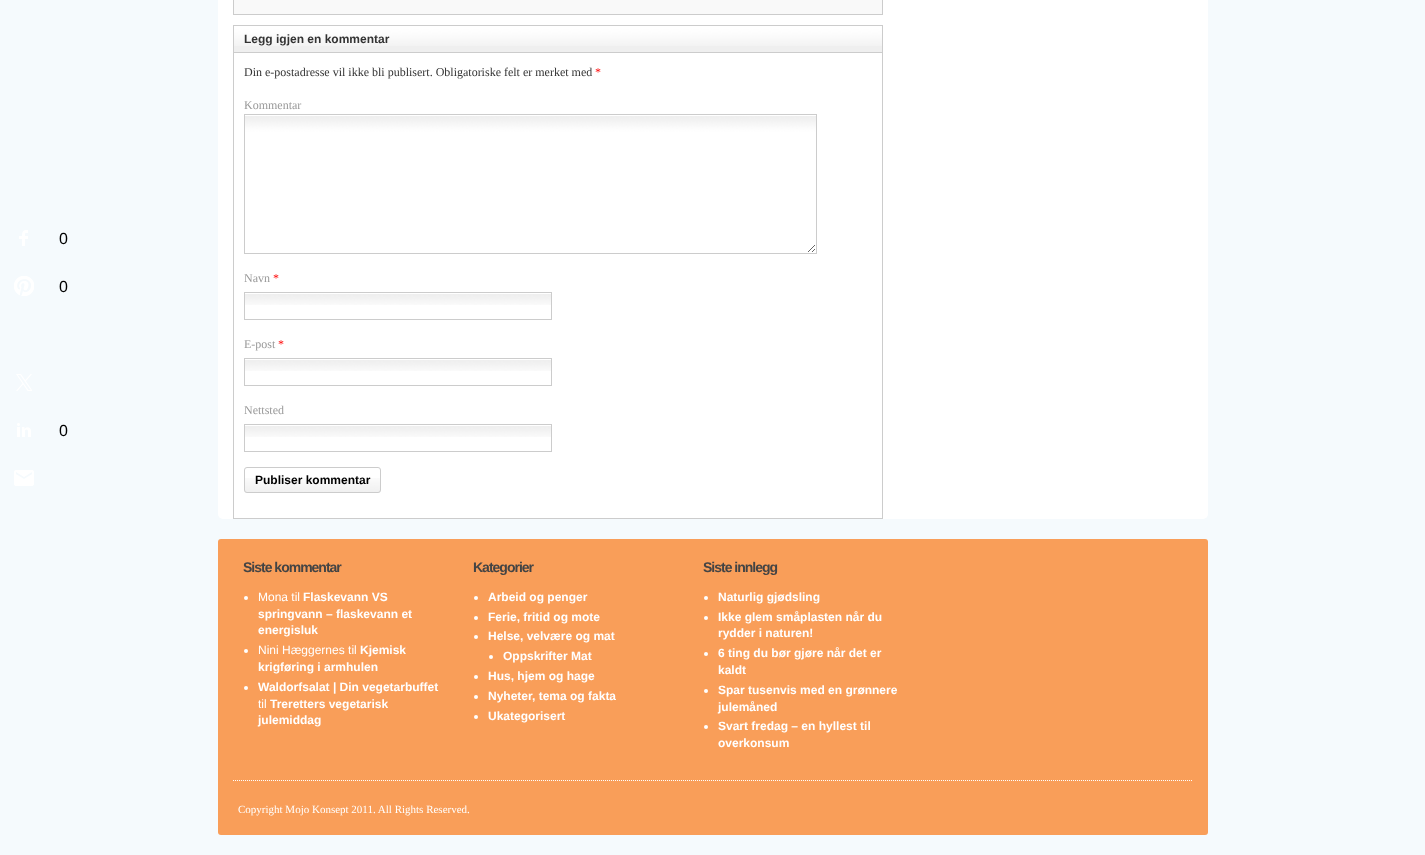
<svg xmlns="http://www.w3.org/2000/svg" width="1425" height="855" viewBox="0 0 1425 855">
  <style>
    .t1 { font: 16px Liberation Sans; fill: #000; }
    .t2 { font: bold 12px Liberation Sans; fill: #333; }
    .t3 { font: 12px Liberation Serif; fill: #333; }
    .t4 { font: 12px Liberation Serif; fill: #f00; }
    .t5 { font: 12px Liberation Serif; fill: #999; }
    .t6 { font: bold 12px Liberation Sans; fill: #000; }
    .t7 { font: bold 14px Liberation Sans; letter-spacing: -1px; fill: #444; }
    .t8 { font: 12px Liberation Sans; fill: #fff; }
    .t9 { font: bold 12px Liberation Sans; fill: #fff; }
    .t10 { font: 11px Liberation Serif; fill: #fff; }
  </style>
  <rect width="100%" height="100%" fill="#f5fafd"/>
  <image x="19" y="230" width="9" height="16" href="images/1.png"/>
  <text x="59" y="244" class="t1">0</text>
  <image x="14" y="276" width="20" height="20" href="images/2.png"/>
  <text x="59" y="292" class="t1">0</text>
  <image x="16" y="374" width="16" height="17" href="images/3.png"/>
  <image x="17" y="423" width="14" height="14" href="images/4.png"/>
  <text x="59" y="436" class="t1">0</text>
  <image x="14" y="470" width="20" height="16" href="images/5.png"/>
  <rect x="218" y="-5" width="990" height="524" rx="5" fill="#fff"/>
  <rect x="234" y="0" width="648" height="14" fill="#f9f9f9"/>
  <rect x="882" y="0" width="1" height="15" fill="#ccc"/>
  <rect x="233" y="0" width="1" height="4" fill="#ccc"/>
  <rect x="233" y="14" width="650" height="1" fill="#ccc"/>
  <rect x="233" y="4" width="1" height="11" fill="#ccc"/>
  <rect x="234" y="46" width="648" height="6" fill="#efefef"/>
  <image x="234" y="26" width="648" height="20" href="images/6.png"/>
  <rect x="233.5" y="25.5" width="649" height="27" fill="none" stroke="#ccc"/>
  <text x="244" y="43" class="t2">Legg igjen en kommentar</text>
  <rect x="882" y="53" width="1" height="466" fill="#ccc"/>
  <rect x="233" y="518" width="650" height="1" fill="#ccc"/>
  <rect x="233" y="53" width="1" height="466" fill="#ccc"/>
  <text x="244" y="76" class="t3">Din e-postadresse vil ikke bli publisert. Obligatoriske felt er merket med</text>
  <text x="595" y="76" class="t4">*</text>
  <text x="244" y="109" class="t5">Kommentar</text>
  <image x="245" y="116" width="571" height="136" href="images/7.png"/>
  <rect x="244.5" y="114.5" width="572" height="139" fill="none" stroke="#ccc"/>
  <text x="244" y="282" class="t5">Navn</text>
  <text x="273" y="282" class="t4">*</text>
  <image x="245" y="294" width="306" height="11" href="images/8.png"/>
  <rect x="244.5" y="292.5" width="307" height="27" fill="none" stroke="#ccc"/>
  <text x="244" y="348" class="t5">E-post</text>
  <text x="278" y="348" class="t4">*</text>
  <image x="245" y="360" width="306" height="11" href="images/8.png"/>
  <rect x="244.5" y="358.5" width="307" height="27" fill="none" stroke="#ccc"/>
  <text x="244" y="414" class="t5">Nettsted</text>
  <image x="245" y="426" width="306" height="11" href="images/8.png"/>
  <rect x="244.5" y="424.5" width="307" height="27" fill="none" stroke="#ccc"/>
  <image x="244" y="478" width="137" height="15" href="images/9.png"/>
  <rect x="244.5" y="467.5" width="136" height="25" rx="2.5" fill="none" stroke="#ccc"/>
  <text x="255" y="484" class="t6">Publiser kommentar</text>
  <rect x="218" y="539" width="990" height="296" rx="3" fill="#f99e59"/>
  <path d="M233 780.5H1193" fill="none" stroke="#fff" stroke-dasharray="1 1"/>
  <text x="243" y="572" class="t7">Siste kommentar</text>
  <circle cx="246" cy="598" r="2" fill="#fff"/>
  <text x="258" y="601" class="t8">Mona til</text>
  <text x="303" y="601" class="t9">Flaskevann VS</text>
  <text x="258" y="618" class="t9">springvann – flaskevann et</text>
  <text x="258" y="634" class="t9">energisluk</text>
  <circle cx="246" cy="651" r="2" fill="#fff"/>
  <text x="258" y="654" class="t8">Nini Hæggernes til</text>
  <text x="360" y="654" class="t9">Kjemisk</text>
  <text x="258" y="671" class="t9">krigføring i armhulen</text>
  <circle cx="246" cy="688" r="2" fill="#fff"/>
  <text x="258" y="691" class="t9">Waldorfsalat | Din vegetarbuffet</text>
  <text x="258" y="708" class="t8">til</text>
  <text x="270" y="708" class="t9">Treretters vegetarisk</text>
  <text x="258" y="724" class="t9">julemiddag</text>
  <text x="473" y="572" class="t7">Kategorier</text>
  <circle cx="476" cy="598" r="2" fill="#fff"/>
  <text x="488" y="601" class="t9">Arbeid og penger</text>
  <circle cx="476" cy="618" r="2" fill="#fff"/>
  <text x="488" y="621" class="t9">Ferie, fritid og mote</text>
  <circle cx="476" cy="637" r="2" fill="#fff"/>
  <text x="488" y="640" class="t9">Helse, velvære og mat</text>
  <circle cx="491" cy="657" r="2" fill="#fff"/>
  <text x="503" y="660" class="t9">Oppskrifter Mat</text>
  <circle cx="476" cy="677" r="2" fill="#fff"/>
  <text x="488" y="680" class="t9">Hus, hjem og hage</text>
  <circle cx="476" cy="697" r="2" fill="#fff"/>
  <text x="488" y="700" class="t9">Nyheter, tema og fakta</text>
  <circle cx="476" cy="717" r="2" fill="#fff"/>
  <text x="488" y="720" class="t9">Ukategorisert</text>
  <text x="703" y="572" class="t7">Siste innlegg</text>
  <circle cx="706" cy="598" r="2" fill="#fff"/>
  <text x="718" y="601" class="t9">Naturlig gjødsling</text>
  <circle cx="706" cy="618" r="2" fill="#fff"/>
  <text x="718" y="621" class="t9">Ikke glem småplasten når du</text>
  <text x="718" y="637" class="t9">rydder i naturen!</text>
  <circle cx="706" cy="654" r="2" fill="#fff"/>
  <text x="718" y="657" class="t9">6 ting du bør gjøre når det er</text>
  <text x="718" y="674" class="t9">kaldt</text>
  <circle cx="706" cy="691" r="2" fill="#fff"/>
  <text x="718" y="694" class="t9">Spar tusenvis med en grønnere</text>
  <text x="718" y="711" class="t9">julemåned</text>
  <circle cx="706" cy="727" r="2" fill="#fff"/>
  <text x="718" y="730" class="t9">Svart fredag – en hyllest til</text>
  <text x="718" y="747" class="t9">overkonsum</text>
  <text x="238" y="813" class="t10">Copyright Mojo Konsept 2011. All Rights Reserved.</text>
</svg>
